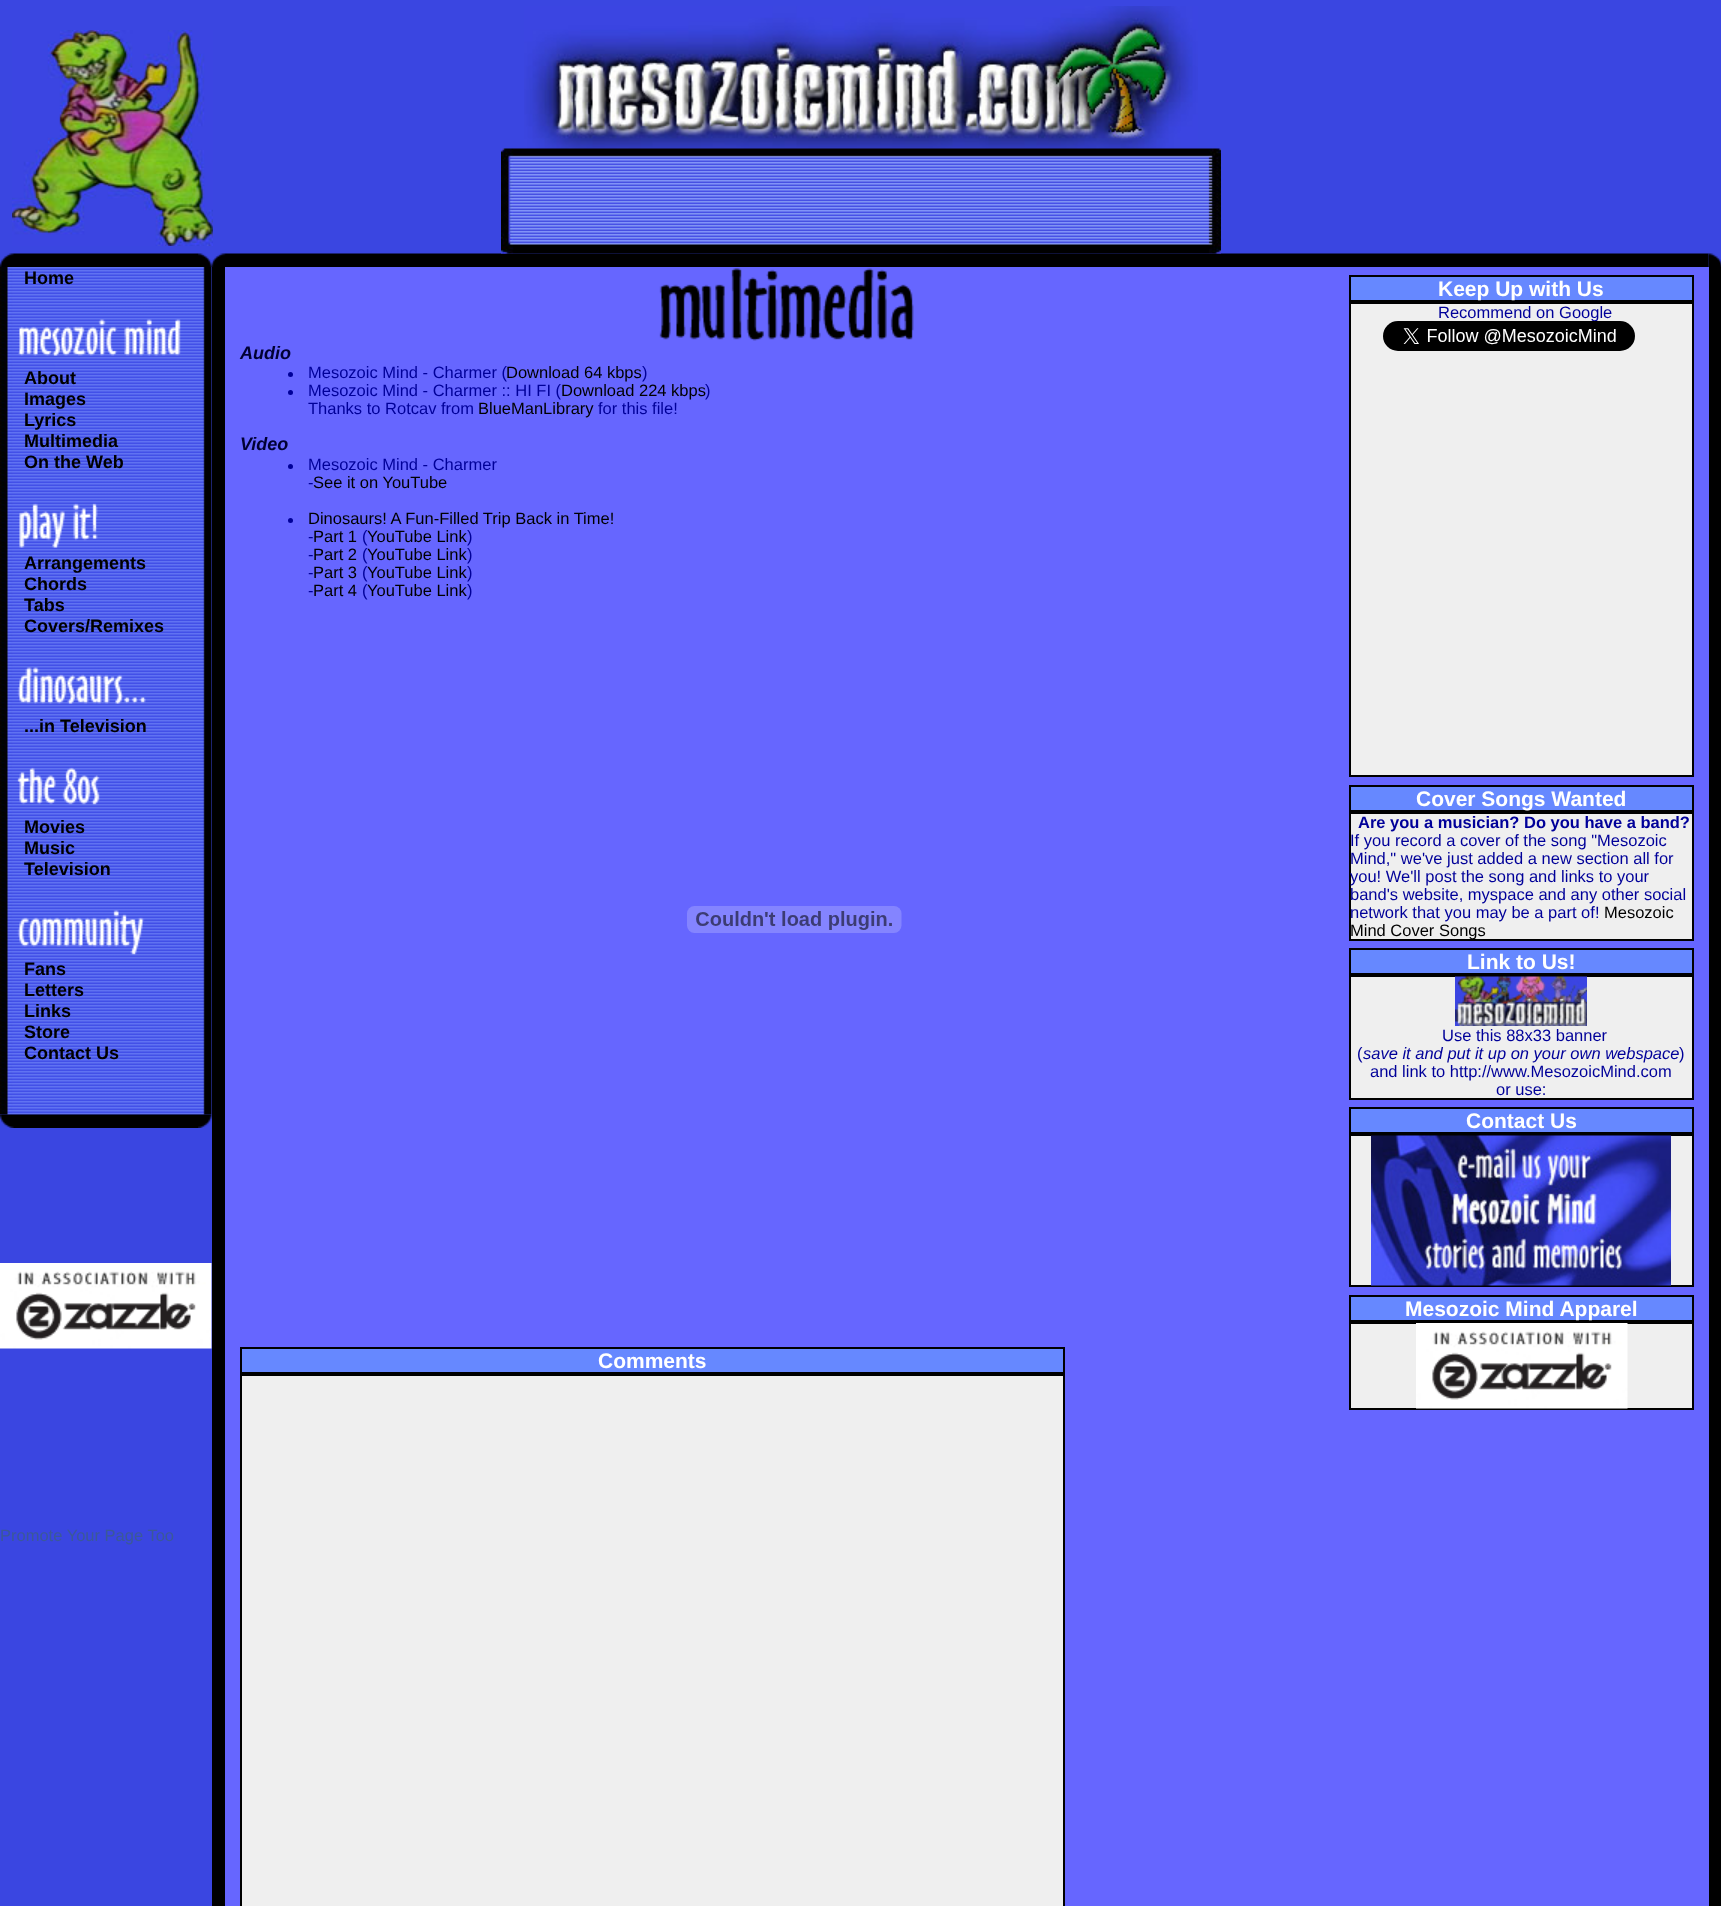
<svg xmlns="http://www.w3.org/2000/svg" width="1721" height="1906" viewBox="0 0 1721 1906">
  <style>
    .t1 { font: bold 18px Liberation Sans; fill: #000; }
    .t2 { font: 16.5px Liberation Sans; fill: #3b5998; }
    .t3 { font: italic bold 18px Liberation Sans; fill: #003; }
    .t4 { font: bold 21px Liberation Sans; fill: #fff; }
    .t5 { font: 16.5px Liberation Sans; fill: #009; }
    .t6 { font: bold 16.5px Liberation Sans; fill: #009; }
    .t7 { font: 16.5px Liberation Sans; fill: #000; }
    .t8 { font: italic 16.5px Liberation Sans; fill: #009; }
  </style>
  <rect width="100%" height="100%" fill="#3a46e1"/>
  <image x="12" y="30" width="201" height="216" href="images/1.png"/>
  <image x="524" y="6" width="674" height="143" href="images/2.png"/>
  <image x="211" y="253" width="1498" height="14" href="images/15.png"/>
  <image x="501" y="148" width="720" height="106" href="images/3.png"/>
  <image x="0" y="253" width="198" height="14" href="images/4.png"/>
  <image x="198" y="253" width="14" height="14" href="images/5.png"/>
  <image x="0" y="267" width="212" height="848" href="images/6.png"/>
  <text x="24" y="284" class="t1">Home</text>
  <image x="18" y="319" width="163" height="37" href="images/7.png"/>
  <text x="24" y="384" class="t1">About</text>
  <text x="24" y="405" class="t1">Images</text>
  <text x="24" y="426" class="t1">Lyrics</text>
  <text x="24" y="447" class="t1">Multimedia</text>
  <text x="24" y="468" class="t1">On the Web</text>
  <image x="19" y="503" width="79" height="45" href="images/8.png"/>
  <text x="24" y="569" class="t1">Arrangements</text>
  <text x="24" y="590" class="t1">Chords</text>
  <text x="24" y="611" class="t1">Tabs</text>
  <text x="24" y="632" class="t1">Covers/Remixes</text>
  <image x="17" y="667" width="129" height="37" href="images/9.png"/>
  <text x="24" y="732" class="t1">...in Television</text>
  <image x="17" y="767" width="83" height="38" href="images/10.png"/>
  <text x="24" y="833" class="t1">Movies</text>
  <text x="24" y="854" class="t1">Music</text>
  <text x="24" y="875" class="t1">Television</text>
  <image x="17" y="910" width="128" height="45" href="images/11.png"/>
  <text x="24" y="975" class="t1">Fans</text>
  <text x="24" y="996" class="t1">Letters</text>
  <text x="24" y="1017" class="t1">Links</text>
  <text x="24" y="1038" class="t1">Store</text>
  <text x="24" y="1059" class="t1">Contact Us</text>
  <image x="0" y="1114" width="198" height="14" href="images/12.png"/>
  <image x="198" y="1114" width="14" height="14" href="images/13.png"/>
  <image x="0" y="1263" width="212" height="86" href="images/14.png"/>
  <text x="0" y="1541" class="t2">Promote Your Page Too</text>
  <image x="1708" y="253" width="13" height="14" href="images/16.png"/>
  <rect x="225" y="267" width="1484" height="1639" fill="#66f"/>
  <rect x="1709" y="267" width="12" height="1639" fill="#000"/>
  <rect x="212" y="267" width="13" height="1639" fill="#000"/>
  <text x="240" y="359" class="t3">Audio</text>
  <image x="659" y="268" width="255" height="73" href="images/17.png"/>
  <rect x="1350" y="276" width="343" height="25" fill="#68f" stroke="#000" stroke-width="2"/>
  <text x="1438" y="296" class="t4">Keep Up with Us</text>
  <rect x="1350" y="303" width="343" height="473" fill="#efefef" stroke="#000" stroke-width="2"/>
  <text x="1438" y="318" class="t5">Recommend on Google</text>
  <image x="1383" y="321" width="252" height="30" href="images/18.png"/>
  <rect x="1350" y="786" width="343" height="25" fill="#68f" stroke="#000" stroke-width="2"/>
  <text x="1416" y="806" class="t4">Cover Songs Wanted</text>
  <rect x="1350" y="813" width="343" height="127" fill="#efefef" stroke="#000" stroke-width="2"/>
  <text x="1358" y="828" class="t6">Are you a musician? Do you have a band?</text>
  <text x="1350" y="846" class="t5">If you record a cover of the song "Mesozoic</text>
  <text x="1350" y="864" class="t5">Mind," we've just added a new section all for</text>
  <text x="1350" y="882" class="t5">you! We'll post the song and links to your</text>
  <text x="1350" y="900" class="t5">band's website, myspace and any other social</text>
  <text x="1350" y="918" class="t5">network that you may be a part of!</text>
  <text x="1604" y="918" class="t7">Mesozoic</text>
  <text x="1350" y="936" class="t7">Mind Cover Songs</text>
  <rect x="1350" y="949" width="343" height="25" fill="#68f" stroke="#000" stroke-width="2"/>
  <text x="1467" y="969" class="t4">Link to Us!</text>
  <rect x="1350" y="976" width="343" height="123" fill="#efefef" stroke="#000" stroke-width="2"/>
  <image x="1455" y="976" width="132" height="50" href="images/19.png"/>
  <text x="1442" y="1041" class="t5">Use this 88x33 banner</text>
  <text x="1357" y="1059" class="t5">(</text>
  <text x="1363" y="1059" class="t8">save it and put it up on your own webspace</text>
  <text x="1679" y="1059" class="t5">)</text>
  <text x="1370" y="1077" class="t5">and link to http://www.MesozoicMind.com</text>
  <text x="1496" y="1095" class="t5">or use:</text>
  <rect x="1350" y="1108" width="343" height="25" fill="#68f" stroke="#000" stroke-width="2"/>
  <text x="1466" y="1128" class="t4">Contact Us</text>
  <rect x="1350" y="1135" width="343" height="151" fill="#efefef" stroke="#000" stroke-width="2"/>
  <image x="1371" y="1135" width="300" height="151" href="images/20.png"/>
  <rect x="1350" y="1296" width="343" height="25" fill="#68f" stroke="#000" stroke-width="2"/>
  <text x="1405" y="1316" class="t4">Mesozoic Mind Apparel</text>
  <rect x="1350" y="1323" width="343" height="86" fill="#efefef" stroke="#000" stroke-width="2"/>
  <image x="1416" y="1323" width="212" height="86" href="images/21.png"/>
  <circle cx="290.5" cy="374.5" r="2.5" fill="#009"/>
  <text x="308" y="378" class="t5">Mesozoic Mind - Charmer (</text>
  <text x="506" y="378" class="t7">Download 64 kbps</text>
  <text x="642" y="378" class="t5">)</text>
  <circle cx="290.5" cy="392.5" r="2.5" fill="#009"/>
  <text x="308" y="396" class="t5">Mesozoic Mind - Charmer :: HI FI (</text>
  <text x="561" y="396" class="t7">Download 224 kbps</text>
  <text x="705" y="396" class="t5">)</text>
  <text x="308" y="414" class="t5">Thanks to Rotcav from</text>
  <text x="478" y="414" class="t7">BlueManLibrary</text>
  <text x="598" y="414" class="t5">for this file!</text>
  <text x="240" y="450" class="t3">Video</text>
  <circle cx="290.5" cy="466.5" r="2.5" fill="#009"/>
  <text x="308" y="470" class="t5">Mesozoic Mind - Charmer</text>
  <text x="308" y="488" class="t5">-</text>
  <text x="313" y="488" class="t7">See it on YouTube</text>
  <circle cx="290.5" cy="520.5" r="2.5" fill="#009"/>
  <text x="308" y="524" class="t7">Dinosaurs! A Fun-Filled Trip Back in Time!</text>
  <text x="308" y="542" class="t5">-</text>
  <text x="313" y="542" class="t7">Part 1</text>
  <text x="362" y="542" class="t5">(</text>
  <text x="367" y="542" class="t7">YouTube Link</text>
  <text x="467" y="542" class="t5">)</text>
  <text x="308" y="560" class="t5">-</text>
  <text x="313" y="560" class="t7">Part 2</text>
  <text x="362" y="560" class="t5">(</text>
  <text x="367" y="560" class="t7">YouTube Link</text>
  <text x="467" y="560" class="t5">)</text>
  <text x="308" y="578" class="t5">-</text>
  <text x="313" y="578" class="t7">Part 3</text>
  <text x="362" y="578" class="t5">(</text>
  <text x="367" y="578" class="t7">YouTube Link</text>
  <text x="467" y="578" class="t5">)</text>
  <text x="308" y="596" class="t5">-</text>
  <text x="313" y="596" class="t7">Part 4</text>
  <text x="362" y="596" class="t5">(</text>
  <text x="367" y="596" class="t7">YouTube Link</text>
  <text x="467" y="596" class="t5">)</text>
  <image x="687" y="906" width="215" height="27" href="images/22.png"/>
  <rect x="241" y="1348" width="823" height="25" fill="#68f" stroke="#000" stroke-width="2"/>
  <text x="598" y="1368" class="t4">Comments</text>
  <rect x="241" y="1375" width="823" height="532" fill="#efefef" stroke="#000" stroke-width="2"/>
</svg>
